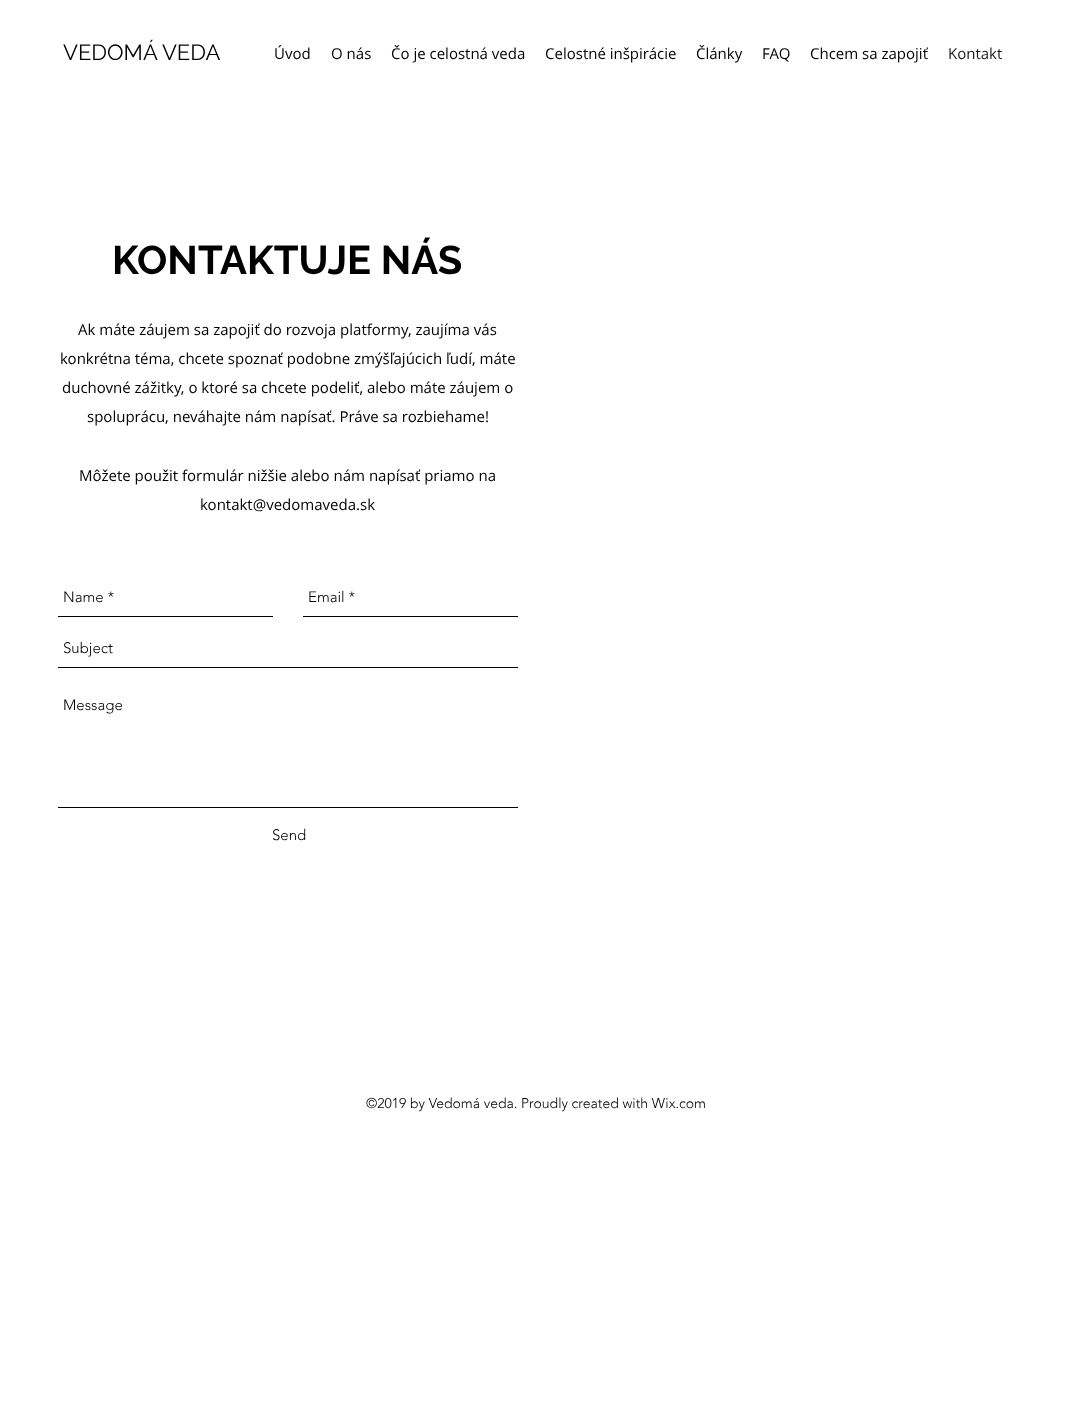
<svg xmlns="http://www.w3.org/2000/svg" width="1065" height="1402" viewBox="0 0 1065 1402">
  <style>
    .t1 { font: 22px Raleway; fill: #000; }
    .t2 { font: 15px Open Sans; fill: #000; }
    .t3 { font: 15px Open Sans; fill: #191919; }
    .t4 { font: bold 40px Raleway; fill: #000; }
    .t5 { font: 300 15px 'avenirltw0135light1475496'; fill: #000; }
    .t6 { font: 300 14px 'avenirltw0135light1475496'; fill: #000; }
  </style>
  <rect width="100%" height="100%" fill="#fff"/>
  <text x="63" y="60" class="t1">VEDOMÁ VEDA</text>
  <text x="274" y="59" class="t2">Úvod</text>
  <text x="331" y="59" class="t2">O nás</text>
  <text x="391" y="59" class="t2">Čo je celostná veda</text>
  <text x="545" y="59" class="t2">Celostné inšpirácie</text>
  <text x="696" y="59" class="t2">Články</text>
  <text x="762" y="59" class="t2">FAQ</text>
  <text x="810" y="59" class="t2">Chcem sa zapojiť</text>
  <text x="948" y="59" class="t3">Kontakt</text>
  <text x="112" y="274" class="t4">KONTAKTUJE NÁS</text>
  <text x="78" y="335" class="t2">Ak máte záujem sa zapojiť do rozvoja platformy, zaujíma vás</text>
  <text x="60" y="364" class="t2">konkrétna téma, chcete spoznať podobne zmýšľajúcich ľudí, máte</text>
  <text x="62" y="393" class="t2">duchovné zážitky, o ktoré sa chcete podeliť, alebo máte záujem o</text>
  <text x="87" y="422" class="t2">spoluprácu, neváhajte nám napísať. Práve sa rozbiehame!</text>
  <text x="79" y="481" class="t2">Môžete použit formulár nižšie alebo nám napísať priamo na</text>
  <text x="200" y="510" class="t2">kontakt@vedomaveda.sk</text>
  <rect x="58" y="616" width="215" height="1" fill="#000"/>
  <text x="63" y="602" class="t5">Name *</text>
  <rect x="303" y="616" width="215" height="1" fill="#000"/>
  <text x="308" y="602" class="t5">Email *</text>
  <rect x="58" y="667" width="460" height="1" fill="#000"/>
  <text x="63" y="653" class="t5">Subject</text>
  <rect x="58" y="807" width="460" height="1" fill="#000"/>
  <text x="63" y="710" class="t5">Message</text>
  <text x="272" y="840" class="t5">Send</text>
  <text x="366" y="1108" class="t6">©2019 by Vedomá veda. Proudly created with Wix.com</text>
</svg>
